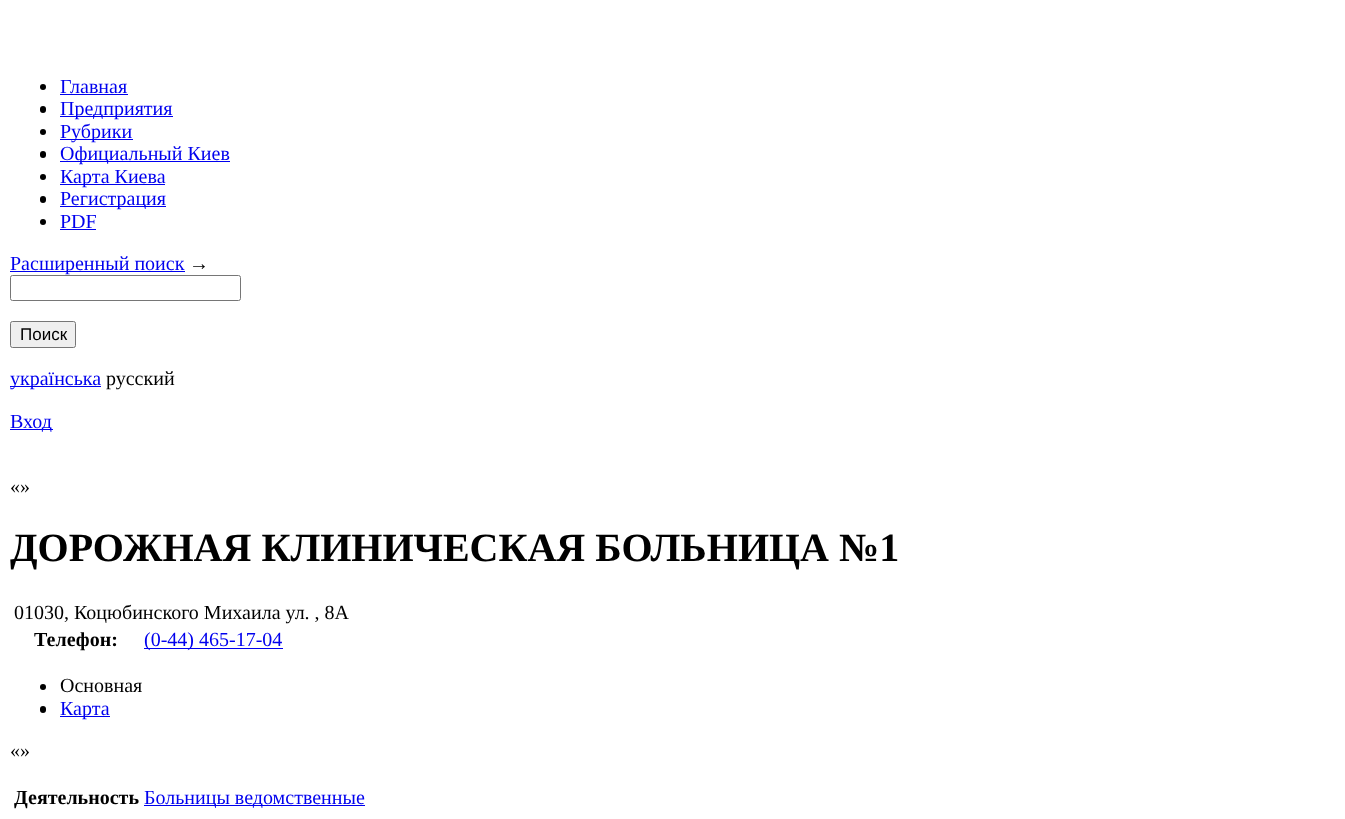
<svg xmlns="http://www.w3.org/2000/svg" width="1345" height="819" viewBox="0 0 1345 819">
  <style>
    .t1 { font: 20px Liberation Serif; fill: #00e; }
    .t2 { font: 20px Liberation Serif; fill: #000; }
    .t3 { font: 17px Liberation Sans; fill: #000; }
    .t4 { font: bold 40px Liberation Serif; fill: #000; }
    .t5 { font: bold 20px Liberation Serif; fill: #000; }
  </style>
  <rect width="100%" height="100%" fill="#fff"/>
  <circle cx="43" cy="87" r="3" fill="#000"/>
  <text x="60" y="93" class="t1">Главная</text>
  <rect x="60" y="94" width="68" height="1" fill="#00e"/>
  <rect x="40" y="106" width="6" height="7" rx="3" fill="#000"/>
  <rect x="60" y="116" width="113" height="1" fill="#00e"/>
  <text x="60" y="115" class="t1">Предприятия</text>
  <circle cx="43" cy="132" r="3" fill="#000"/>
  <rect x="60" y="139" width="73" height="1" fill="#00e"/>
  <text x="60" y="138" class="t1">Рубрики</text>
  <rect x="40" y="151" width="6" height="7" rx="3" fill="#000"/>
  <rect x="60" y="161" width="170" height="1" fill="#00e"/>
  <text x="60" y="160" class="t1">Официальный Киев</text>
  <circle cx="43" cy="177" r="3" fill="#000"/>
  <rect x="60" y="184" width="105" height="1" fill="#00e"/>
  <text x="60" y="183" class="t1">Карта Киева</text>
  <rect x="40" y="196" width="6" height="7" rx="3" fill="#000"/>
  <rect x="60" y="206" width="106" height="1" fill="#00e"/>
  <text x="60" y="205" class="t1">Регистрация</text>
  <circle cx="43" cy="222" r="3" fill="#000"/>
  <text x="60" y="228" class="t1">PDF</text>
  <rect x="60" y="229" width="36" height="1" fill="#00e"/>
  <rect x="10" y="271" width="175" height="1" fill="#00e"/>
  <text x="10" y="270" class="t1">Расширенный поиск</text>
  <text x="189" y="270" class="t2">→</text>
  <rect x="10.5" y="275.5" width="230" height="25" rx="2" fill="none" stroke="#767676"/>
  <rect x="10.5" y="321.5" width="65" height="26" rx="2" fill="#efefef" stroke="#767676"/>
  <text x="20" y="340" class="t3">Поиск</text>
  <rect x="10" y="386" width="91" height="1" fill="#00e"/>
  <text x="10" y="385" class="t1">українська</text>
  <text x="106" y="385" class="t2">русский</text>
  <rect x="10" y="429" width="43" height="1" fill="#00e"/>
  <text x="10" y="428" class="t1">Вход</text>
  <text x="10" y="493" class="t2">«»</text>
  <text x="10" y="561" class="t4">ДОРОЖНАЯ КЛИНИЧЕСКАЯ БОЛЬНИЦА №1</text>
  <text x="14" y="619" class="t2">01030, Коцюбинского Михаила ул. , 8А</text>
  <text x="34" y="646" class="t5">Телефон:</text>
  <rect x="144" y="648" width="139" height="1" fill="#00e"/>
  <text x="144" y="646" class="t1">(0-44) 465-17-04</text>
  <circle cx="43" cy="687" r="3" fill="#000"/>
  <text x="60" y="692" class="t2">Основная</text>
  <rect x="40" y="706" width="6" height="7" rx="3" fill="#000"/>
  <rect x="60" y="716" width="50" height="1" fill="#00e"/>
  <text x="60" y="715" class="t1">Карта</text>
  <text x="10" y="757" class="t2">«»</text>
  <text x="14" y="804" class="t5">Деятельность</text>
  <rect x="144" y="805" width="221" height="1" fill="#00e"/>
  <text x="144" y="804" class="t1">Больницы ведомственные</text>
</svg>
